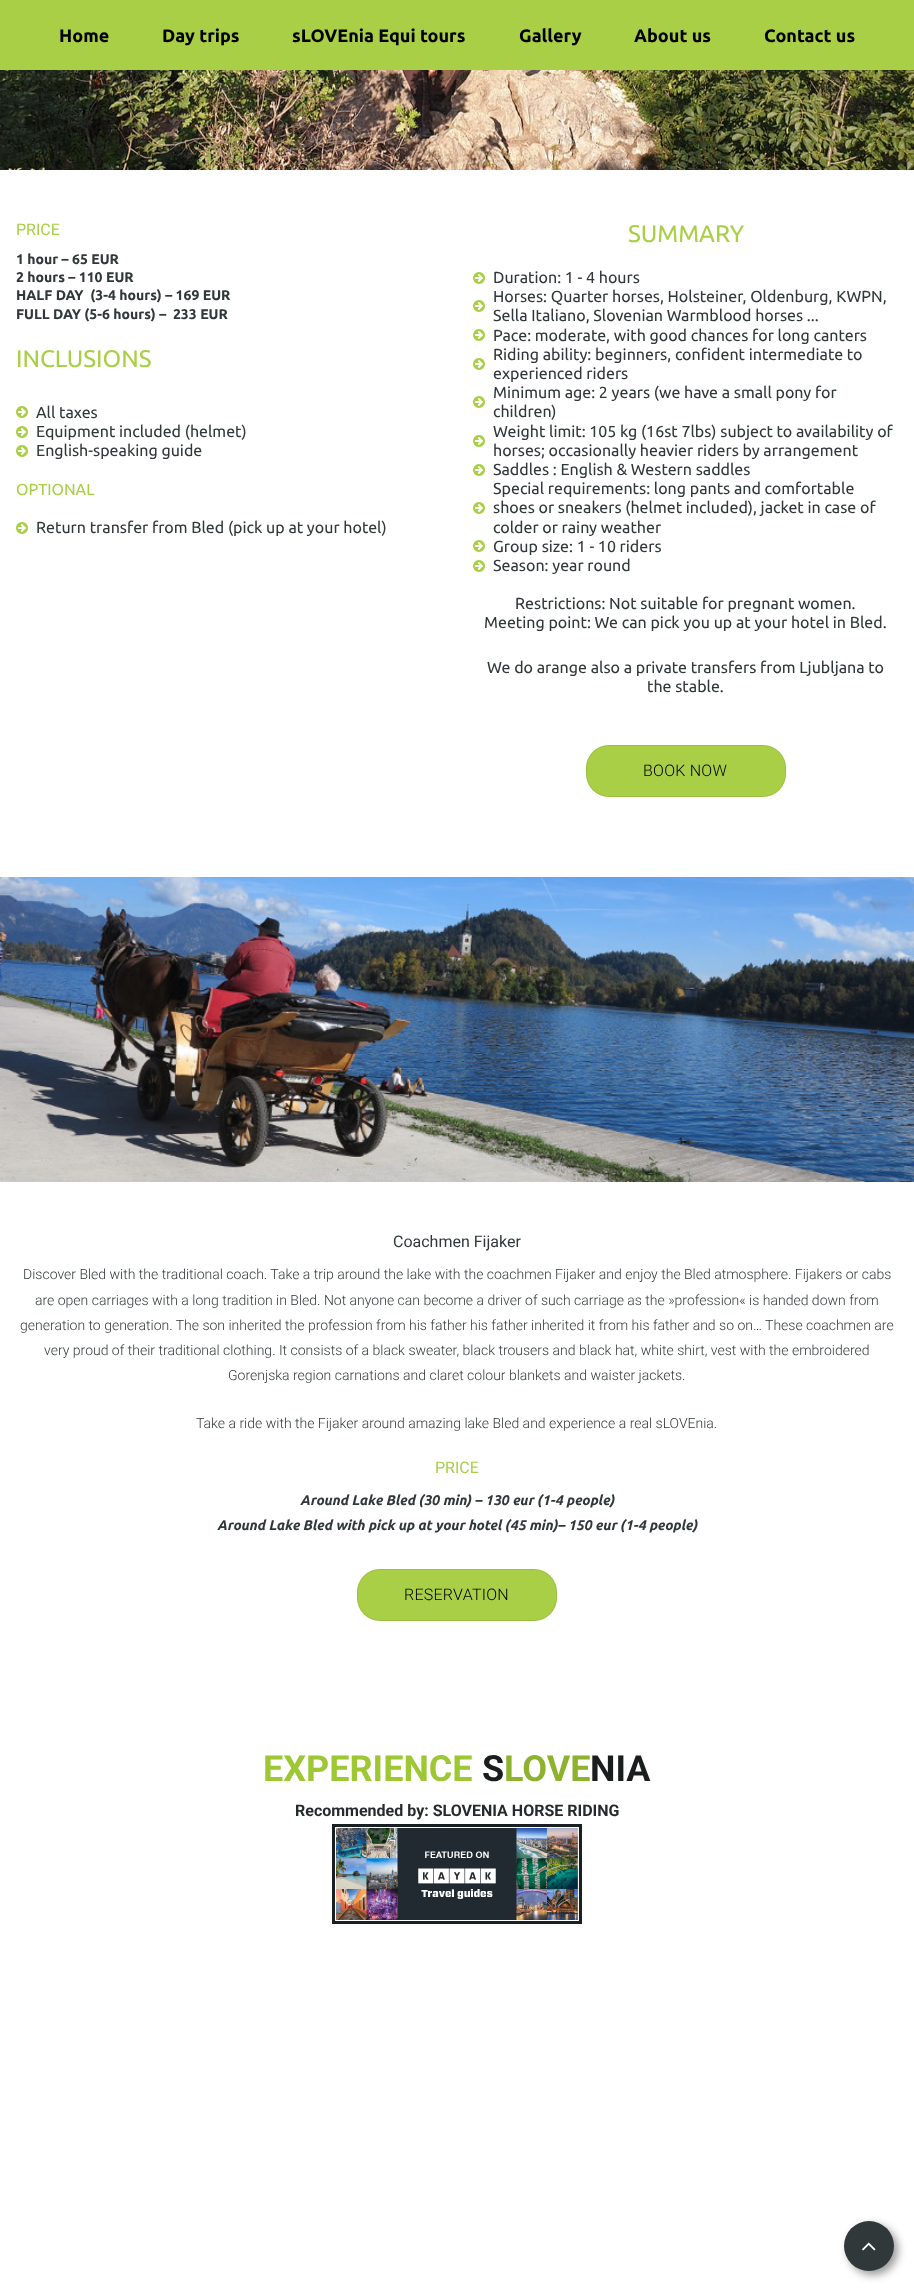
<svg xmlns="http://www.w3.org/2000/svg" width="914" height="2291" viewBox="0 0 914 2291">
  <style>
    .t1 { font: bold 18px Ubuntu; fill: #000; }
    .t2 { font: 16px Roboto; fill: #a8cf45; }
    .t3 { font: bold 14px Ubuntu; fill: #31383a; }
    .t4 { font: 24px Ubuntu; fill: #a8cf45; }
    .t5 { font: 16px Ubuntu; fill: #31383a; }
    .t6 { font: 16px Ubuntu; fill: #a8cf45; }
    .t7 { font: 300 16px Roboto; letter-spacing: 0.25px; fill: #000; }
    .t8 { font: 16px Roboto; fill: #31383a; }
    .t9 { font: 300 14px Roboto; fill: #31383a; }
    .t10 { font: italic bold 14px Ubuntu; fill: #31383a; }
    .t11 { font: bold 36px Roboto; fill: #9dc733; }
    .t12 { font: bold 36px Roboto; fill: #1a1d1e; }
    .t13 { font: bold 36px Roboto; fill: #8db22e; }
    .t14 { font: bold 16px Roboto; fill: #252b2c; }
  </style>
  <rect width="100%" height="100%" fill="#fff"/>
  <rect x="0" y="0" width="914" height="70" fill="#a8cf45"/>
  <text x="59" y="42" class="t1">Home</text>
  <text x="162" y="42" class="t1">Day trips</text>
  <text x="292" y="42" class="t1">sLOVEnia Equi tours</text>
  <text x="519" y="42" class="t1">Gallery</text>
  <text x="634" y="42" class="t1">About us</text>
  <text x="764" y="42" class="t1">Contact us</text>
  <image x="0" y="70" width="914" height="100" href="images/1.png"/>
  <text x="16" y="235" class="t2">PRICE</text>
  <text x="16" y="264" class="t3">1 hour – 65 EUR</text>
  <text x="16" y="282" class="t3">2 hours – 110 EUR</text>
  <text x="16" y="300" class="t3" xml:space="preserve">HALF DAY  (3-4 hours) – 169 EUR</text>
  <text x="16" y="319" class="t3" xml:space="preserve">FULL DAY (5-6 hours) –  233 EUR</text>
  <text x="16" y="367" class="t4">INCLUSIONS</text>
  <image x="16" y="406" width="12" height="12" href="images/2.png"/>
  <text x="36" y="418" class="t5">All taxes</text>
  <image x="16" y="426" width="12" height="12" href="images/2.png"/>
  <text x="36" y="437" class="t5">Equipment included (helmet)</text>
  <image x="16" y="445" width="12" height="12" href="images/2.png"/>
  <text x="36" y="456" class="t5">English-speaking guide</text>
  <text x="16" y="495" class="t6">OPTIONAL</text>
  <image x="16" y="522" width="12" height="12" href="images/2.png"/>
  <text x="36" y="533" class="t5">Return transfer from Bled (pick up at your hotel)</text>
  <text x="628" y="242" class="t4">SUMMARY</text>
  <image x="473" y="272" width="12" height="12" href="images/2.png"/>
  <text x="493" y="283" class="t5">Duration: 1 - 4 hours</text>
  <image x="473" y="300" width="12" height="12" href="images/2.png"/>
  <text x="493" y="302" class="t5">Horses: Quarter horses, Holsteiner, Oldenburg, KWPN,</text>
  <text x="493" y="321" class="t5">Sella Italiano, Slovenian Warmblood horses ...</text>
  <image x="473" y="329" width="12" height="12" href="images/2.png"/>
  <text x="493" y="341" class="t5">Pace: moderate, with good chances for long canters</text>
  <image x="473" y="358" width="12" height="12" href="images/2.png"/>
  <text x="493" y="360" class="t5">Riding ability: beginners, confident intermediate to</text>
  <text x="493" y="379" class="t5">experienced riders</text>
  <image x="473" y="396" width="12" height="12" href="images/2.png"/>
  <text x="493" y="398" class="t5">Minimum age: 2 years (we have a small pony for</text>
  <text x="493" y="417" class="t5">children)</text>
  <image x="473" y="435" width="12" height="12" href="images/2.png"/>
  <text x="493" y="437" class="t5">Weight limit: 105 kg (16st 7lbs) subject to availability of</text>
  <text x="493" y="456" class="t5">horses; occasionally heavier riders by arrangement</text>
  <image x="473" y="464" width="12" height="12" href="images/2.png"/>
  <text x="493" y="475" class="t5">Saddles : English &amp; Western saddles</text>
  <text x="493" y="494" class="t5">Special requirements: long pants and comfortable</text>
  <image x="473" y="502" width="12" height="12" href="images/2.png"/>
  <text x="493" y="513" class="t5">shoes or sneakers (helmet included), jacket in case of</text>
  <text x="493" y="533" class="t5">colder or rainy weather</text>
  <image x="473" y="540" width="12" height="12" href="images/2.png"/>
  <text x="493" y="552" class="t5">Group size: 1 - 10 riders</text>
  <image x="473" y="560" width="12" height="12" href="images/2.png"/>
  <text x="493" y="571" class="t5">Season: year round</text>
  <text x="515" y="609" class="t5">Restrictions: Not suitable for pregnant women.</text>
  <text x="484" y="628" class="t5">Meeting point: We can pick you up at your hotel in Bled.</text>
  <text x="487" y="673" class="t5">We do arange also a private transfers from Ljubljana to</text>
  <text x="647" y="692" class="t5">the stable.</text>
  <rect x="586" y="745" width="200" height="52" rx="23" fill="#a8cf45"/>
  <rect x="586.5" y="745.5" width="199" height="51" rx="22.5" fill="none" stroke="#31383a1a"/>
  <text x="643" y="776" class="t7">BOOK NOW</text>
  <image x="0" y="877" width="914" height="305" href="images/3.png"/>
  <text x="393" y="1247" class="t8">Coachmen Fijaker</text>
  <text x="23" y="1279" class="t9">Discover Bled with the traditional coach. Take a trip around the lake with the coachmen Fijaker and enjoy the Bled atmosphere. Fijakers or cabs</text>
  <text x="35" y="1305" class="t9">are open carriages with a long tradition in Bled. Not anyone can become a driver of such carriage as the »profession« is handed down from</text>
  <text x="20" y="1330" class="t9">generation to generation. The son inherited the profession from his father his father inherited it from his father and so on… These coachmen are</text>
  <text x="44" y="1355" class="t9">very proud of their traditional clothing. It consists of a black sweater, black trousers and black hat, white shirt, vest with the embroidered</text>
  <text x="228" y="1380" class="t9">Gorenjska region carnations and claret colour blankets and waister jackets.</text>
  <text x="196" y="1428" class="t9">Take a ride with the Fijaker around amazing lake Bled and experience a real sLOVEnia.</text>
  <text x="435" y="1473" class="t2">PRICE</text>
  <text x="300" y="1505" class="t10">Around Lake Bled (30 min) – 130 eur (1-4 people)</text>
  <text x="217" y="1530" class="t10">Around Lake Bled with pick up at your hotel (45 min)– 150 eur (1-4 people)</text>
  <rect x="357" y="1569" width="200" height="52" rx="23" fill="#a8cf45"/>
  <rect x="357.5" y="1569.5" width="199" height="51" rx="22.5" fill="none" stroke="#31383a1a"/>
  <text x="404" y="1600" class="t7">RESERVATION</text>
  <text x="263" y="1781" class="t11">EXPERIENCE</text>
  <text x="482" y="1781" class="t12">S</text>
  <text x="504" y="1781" class="t13">LOVE</text>
  <text x="590" y="1781" class="t12">NIA</text>
  <text x="295" y="1816" class="t14">Recommended by: SLOVENIA HORSE RIDING</text>
  <image x="332" y="1824" width="250" height="100" href="images/4.png"/>
  <rect x="848" y="2225" width="50" height="50" rx="25" fill="#00000066" filter="blur(4px)"/>
  <circle cx="869" cy="2246" r="25" fill="#31383a"/>
  <image x="862" y="2242" width="14" height="9" href="images/5.png"/>
</svg>
